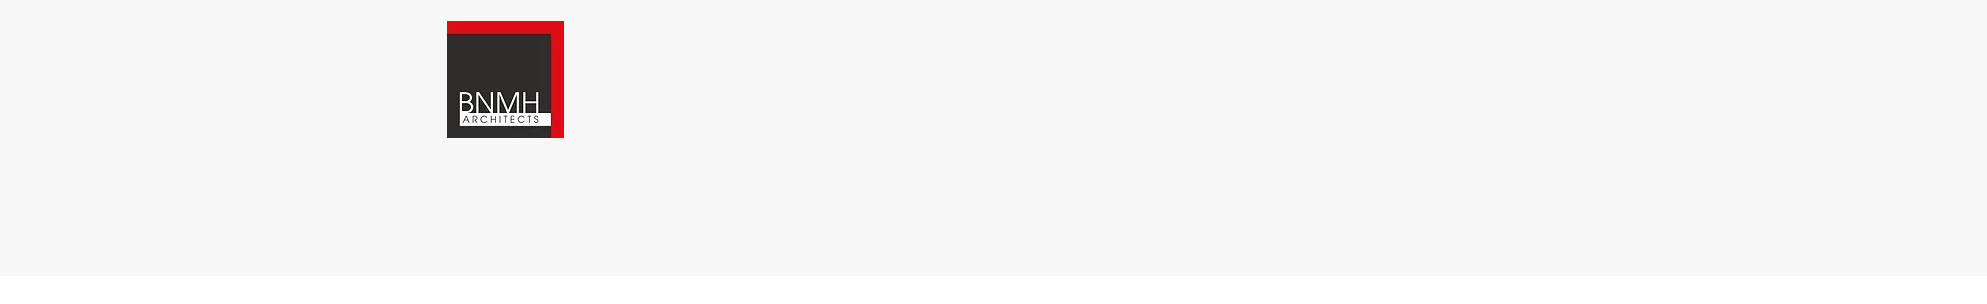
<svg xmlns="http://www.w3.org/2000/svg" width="1987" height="304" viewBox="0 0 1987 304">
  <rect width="100%" height="100%" fill="#f7f7f7"/>
  <image x="447" y="21" width="117" height="117" href="images/1.png"/>
  <rect x="0" y="276" width="1987" height="28" fill="#fff"/>
</svg>
